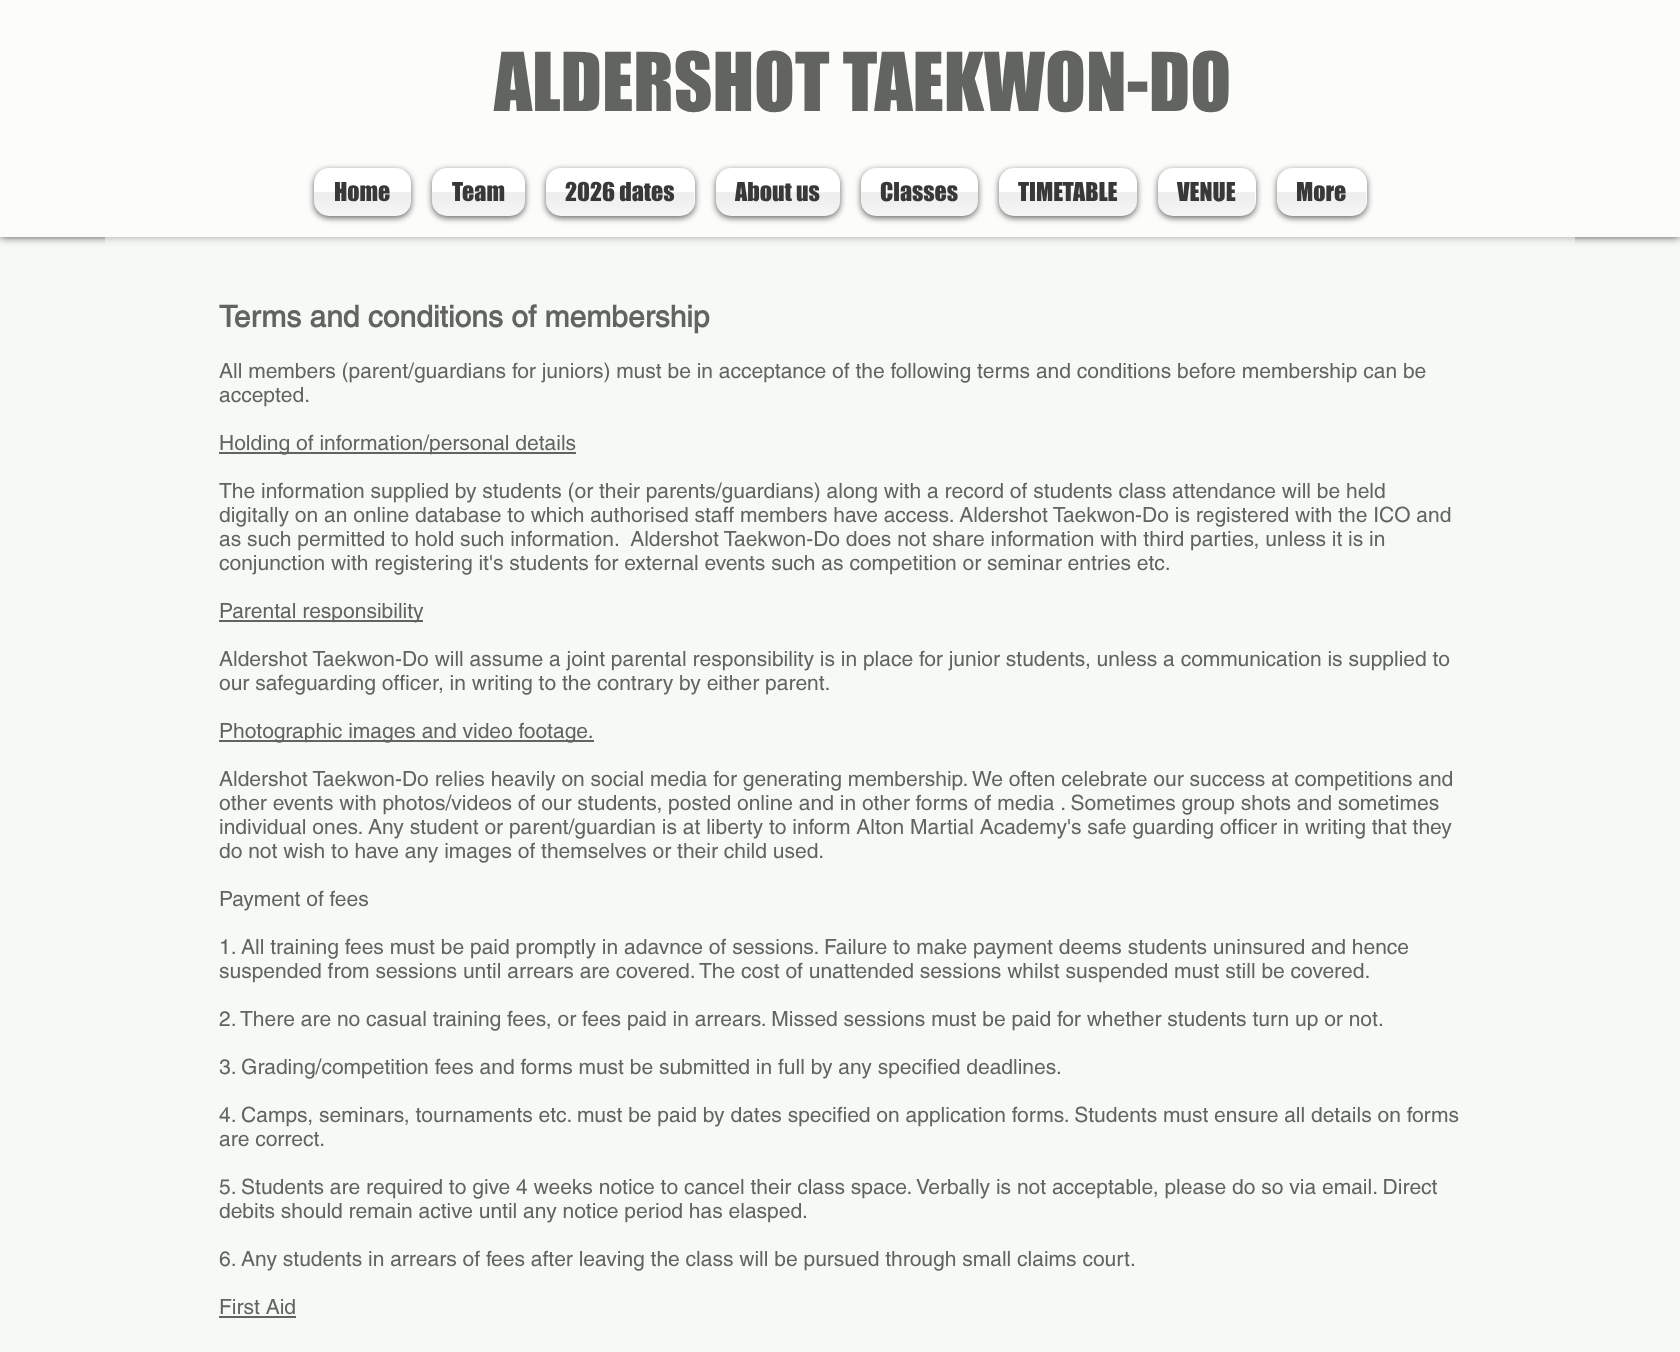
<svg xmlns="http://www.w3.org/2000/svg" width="1680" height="1352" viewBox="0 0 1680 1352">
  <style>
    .t1 { font: 75px 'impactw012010'; fill: #626462; }
    .t2 { font: 24px 'impactw012010'; fill: #383838; }
    .t3 { font: bold 30px helvetica; fill: #626462; }
    .t4 { font: 21px helvetica; fill: #626462; }
  </style>
  <rect width="100%" height="100%" fill="#f6f9f5"/>
  <rect x="0" y="0" width="1680" height="237" fill="#000000b3" filter="blur(4px)"/>
  <rect x="0" y="0" width="1680" height="237" fill="#fcfcfb"/>
  <text x="494" y="111" class="t1">ALDERSHOT TAEKWON-DO</text>
  <rect x="314" y="170" width="97" height="48" rx="15" fill="#00000099" filter="blur(3px)"/>
  <rect x="314" y="168" width="97" height="48" rx="15" fill="#fff"/>
  <image x="314" y="192" width="97" height="24" href="images/1.png"/>
  <text x="334" y="201" class="t2">Home</text>
  <rect x="432" y="170" width="93" height="48" rx="15" fill="#00000099" filter="blur(3px)"/>
  <rect x="432" y="168" width="93" height="48" rx="15" fill="#fff"/>
  <image x="432" y="192" width="93" height="24" href="images/2.png"/>
  <text x="452" y="201" class="t2">Team</text>
  <rect x="546" y="170" width="149" height="48" rx="15" fill="#00000099" filter="blur(3px)"/>
  <rect x="546" y="168" width="149" height="48" rx="15" fill="#fff"/>
  <image x="546" y="192" width="148" height="24" href="images/3.png"/>
  <text x="565" y="201" class="t2">2026 dates</text>
  <rect x="716" y="170" width="124" height="48" rx="15" fill="#00000099" filter="blur(3px)"/>
  <rect x="716" y="168" width="124" height="48" rx="15" fill="#fff"/>
  <image x="716" y="192" width="124" height="24" href="images/4.png"/>
  <text x="735" y="201" class="t2">About us</text>
  <rect x="861" y="170" width="117" height="48" rx="15" fill="#00000099" filter="blur(3px)"/>
  <rect x="861" y="168" width="117" height="48" rx="15" fill="#fff"/>
  <image x="861" y="192" width="117" height="24" href="images/5.png"/>
  <text x="880" y="201" class="t2">Classes</text>
  <rect x="999" y="170" width="138" height="48" rx="15" fill="#00000099" filter="blur(3px)"/>
  <rect x="999" y="168" width="138" height="48" rx="15" fill="#fff"/>
  <image x="999" y="192" width="138" height="24" href="images/6.png"/>
  <text x="1018" y="201" class="t2">TIMETABLE</text>
  <rect x="1158" y="170" width="98" height="48" rx="15" fill="#00000099" filter="blur(3px)"/>
  <rect x="1158" y="168" width="98" height="48" rx="15" fill="#fff"/>
  <image x="1158" y="192" width="97" height="24" href="images/7.png"/>
  <text x="1177" y="201" class="t2">VENUE</text>
  <rect x="1277" y="170" width="90" height="48" rx="15" fill="#00000099" filter="blur(3px)"/>
  <rect x="1277" y="168" width="90" height="48" rx="15" fill="#fff"/>
  <image x="1277" y="192" width="89" height="24" href="images/8.png"/>
  <text x="1296" y="201" class="t2">More</text>
  <rect x="105" y="237" width="1470" height="8" fill="#f6f9f585"/>
  <text x="219" y="327" class="t3">Terms and conditions of membership</text>
  <text x="219" y="378" class="t4">All members (parent/guardians for juniors) must be in acceptance of the following terms and conditions before membership can be</text>
  <text x="219" y="402" class="t4">accepted.</text>
  <rect x="219" y="452" width="357" height="2" fill="#626462"/>
  <text x="219" y="450" class="t4">Holding of information/personal details</text>
  <text x="219" y="498" class="t4">The information supplied by students (or their parents/guardians) along with a record of students class attendance will be held</text>
  <text x="219" y="522" class="t4">digitally on an online database to which authorised staff members have access. Aldershot Taekwon-Do is registered with the ICO and</text>
  <text x="219" y="546" class="t4" xml:space="preserve">as such permitted to hold such information.  Aldershot Taekwon-Do does not share information with third parties, unless it is in</text>
  <text x="219" y="570" class="t4">conjunction with registering it's students for external events such as competition or seminar entries etc.</text>
  <rect x="219" y="620" width="204" height="2" fill="#626462"/>
  <text x="219" y="618" class="t4">Parental responsibility</text>
  <text x="219" y="666" class="t4">Aldershot Taekwon-Do will assume a joint parental responsibility is in place for junior students, unless a communication is supplied to</text>
  <text x="219" y="690" class="t4">our safeguarding officer, in writing to the contrary by either parent.</text>
  <rect x="219" y="740" width="375" height="2" fill="#626462"/>
  <text x="219" y="738" class="t4">Photographic images and video footage.</text>
  <text x="219" y="786" class="t4">Aldershot Taekwon-Do relies heavily on social media for generating membership. We often celebrate our success at competitions and</text>
  <text x="219" y="810" class="t4">other events with photos/videos of our students, posted online and in other forms of media . Sometimes group shots and sometimes</text>
  <text x="219" y="834" class="t4">individual ones. Any student or parent/guardian is at liberty to inform Alton Martial Academy's safe guarding officer in writing that they</text>
  <text x="219" y="858" class="t4">do not wish to have any images of themselves or their child used.</text>
  <text x="219" y="906" class="t4">Payment of fees</text>
  <text x="219" y="954" class="t4">1. All training fees must be paid promptly in adavnce of sessions. Failure to make payment deems students uninsured and hence</text>
  <text x="219" y="978" class="t4">suspended from sessions until arrears are covered. The cost of unattended sessions whilst suspended must still be covered.</text>
  <text x="219" y="1026" class="t4">2. There are no casual training fees, or fees paid in arrears. Missed sessions must be paid for whether students turn up or not.</text>
  <text x="219" y="1074" class="t4">3. Grading/competition fees and forms must be submitted in full by any specified deadlines.</text>
  <text x="219" y="1122" class="t4">4. Camps, seminars, tournaments etc. must be paid by dates specified on application forms. Students must ensure all details on forms</text>
  <text x="219" y="1146" class="t4">are correct.</text>
  <text x="219" y="1194" class="t4">5. Students are required to give 4 weeks notice to cancel their class space. Verbally is not acceptable, please do so via email. Direct</text>
  <text x="219" y="1218" class="t4">debits should remain active until any notice period has elasped.</text>
  <text x="219" y="1266" class="t4">6. Any students in arrears of fees after leaving the class will be pursued through small claims court.</text>
  <text x="219" y="1314" class="t4">First Aid</text>
  <rect x="219" y="1316" width="77" height="2" fill="#626462"/>
</svg>
